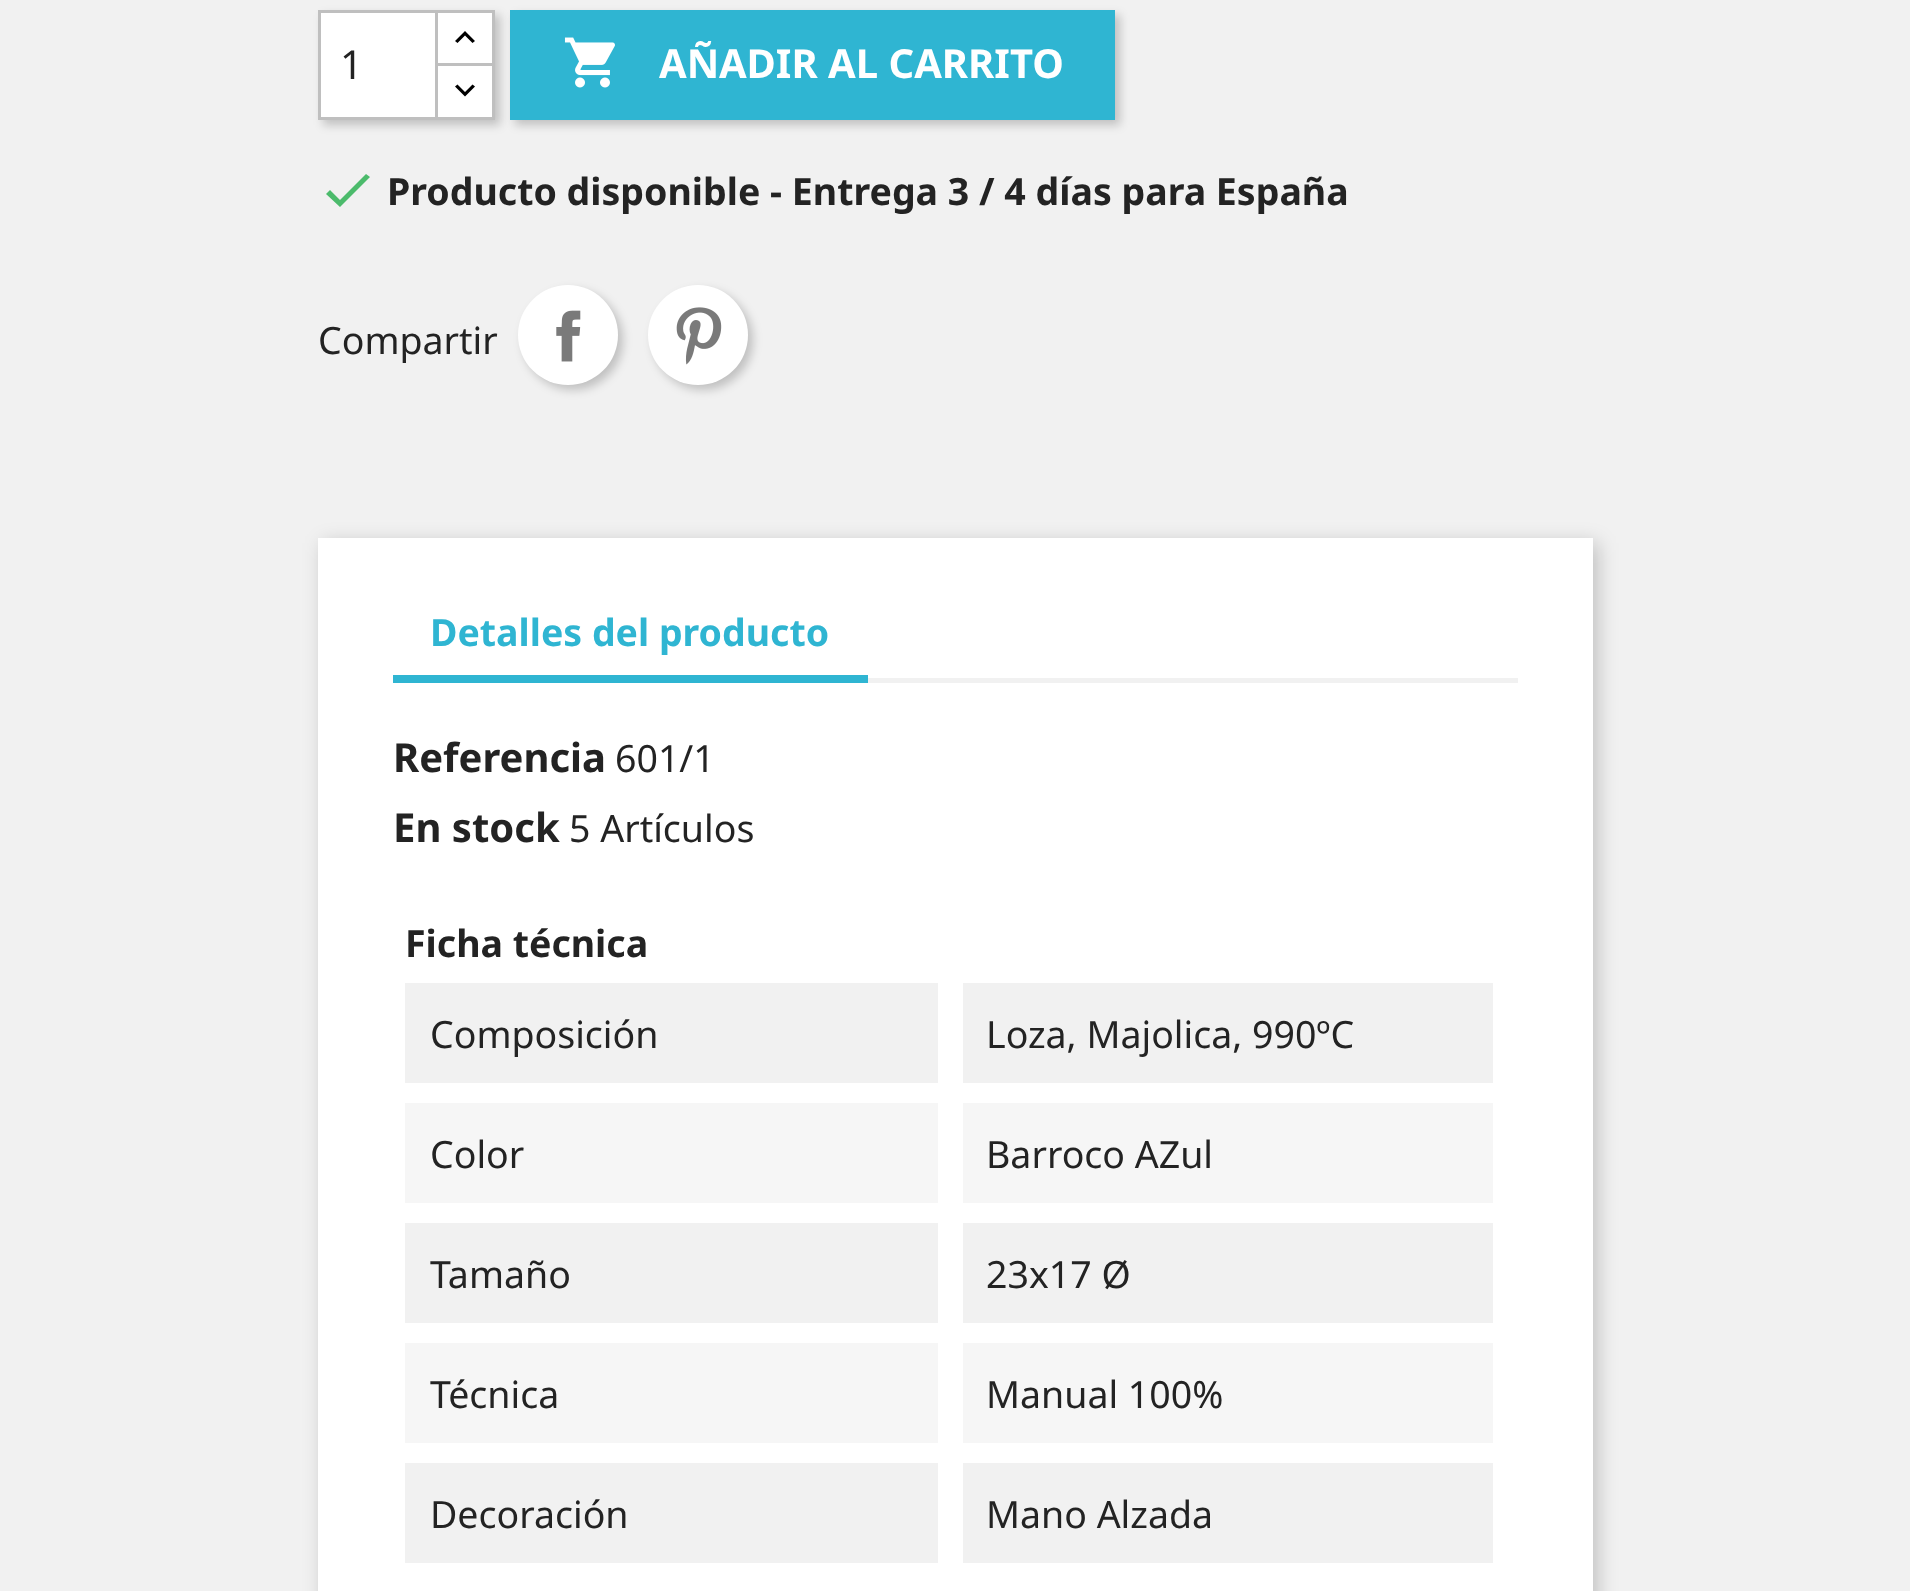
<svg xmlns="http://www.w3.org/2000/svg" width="1910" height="1591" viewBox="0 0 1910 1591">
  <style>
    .t1 { font: 40px Noto Sans; fill: #232323; }
    .t2 { font: bold 40px Noto Sans; fill: #fff; }
    .t3 { font: bold 37.5px Noto Sans; fill: #232323; }
    .t4 { font: 37.5px Noto Sans; fill: #232323; }
    .t5 { font: bold 37.5px Noto Sans; fill: #2fb5d2; }
    .t6 { font: bold 40px Noto Sans; fill: #232323; }
  </style>
  <rect width="100%" height="100%" fill="#f1f1f1"/>
  <rect x="515" y="15" width="605" height="110" fill="#00000033" filter="blur(5px)"/>
  <rect x="510" y="10" width="605" height="110" fill="#2fb5d2"/>
  <rect x="323" y="15" width="177" height="110" fill="#00000033" filter="blur(5px)"/>
  <rect x="438" y="13" width="54" height="50" fill="#fff"/>
  <rect x="436.5" y="11.5" width="57" height="55" fill="none" stroke="#bfbfbf" stroke-width="3"/>
  <rect x="436.5" y="64.5" width="57" height="54" fill="#fff" stroke="#bfbfbf" stroke-width="3"/>
  <rect x="319.5" y="11.5" width="117" height="107" fill="#fff" stroke="#bfbfbf" stroke-width="3"/>
  <text x="340" y="79" class="t1">1</text>
  <path d="M465 31L475 41L472.5 43L465 35.5L457.5 43L455 41Z" fill="#000"/>
  <path d="M472.5 84.5L475 86.5L465 96.5L455 86.5L457.5 84.5L465 92Z" fill="#000"/>
  <image x="564" y="37" width="51" height="51" href="images/1.png"/>
  <text x="659" y="78" class="t2">AÑADIR AL CARRITO</text>
  <path d="M340 200L366 174L370 177L340 207L326 194L330 190Z" fill="#4cbb6c"/>
  <text x="387" y="205" class="t3">Producto disponible - Entrega 3 / 4 días para España</text>
  <text x="318" y="354" class="t4">Compartir</text>
  <rect x="523" y="290" width="100" height="100" rx="50" fill="#00000033" filter="blur(5px)"/>
  <circle cx="568" cy="335" r="50" fill="#fff"/>
  <image x="556" y="310" width="25" height="52" href="images/2.png"/>
  <rect x="653" y="290" width="100" height="100" rx="50" fill="#00000033" filter="blur(5px)"/>
  <circle cx="698" cy="335" r="50" fill="#fff"/>
  <image x="676" y="307" width="46" height="58" href="images/3.png"/>
  <rect x="323" y="543" width="1275" height="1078" fill="#00000033" filter="blur(10px)"/>
  <rect x="318" y="538" width="1275" height="1053" fill="#fff"/>
  <rect x="868" y="678" width="650" height="5" fill="#f1f1f1"/>
  <rect x="393" y="675" width="475" height="8" fill="#2fb5d2"/>
  <text x="430" y="646" class="t5">Detalles del producto</text>
  <text x="393" y="772" class="t6">Referencia</text>
  <text x="615" y="772" class="t4">601/1</text>
  <text x="393" y="842" class="t6">En stock</text>
  <text x="569" y="842" class="t4">5 Artículos</text>
  <text x="405" y="957" class="t3">Ficha técnica</text>
  <rect x="405" y="983" width="533" height="100" fill="#f1f1f1"/>
  <text x="430" y="1048" class="t4">Composición</text>
  <rect x="963" y="983" width="530" height="100" fill="#f1f1f1"/>
  <text x="986" y="1048" class="t4">Loza, Majolica, 990ºC</text>
  <rect x="405" y="1103" width="533" height="100" fill="#f6f6f6"/>
  <text x="430" y="1168" class="t4">Color</text>
  <rect x="963" y="1103" width="530" height="100" fill="#f6f6f6"/>
  <text x="986" y="1168" class="t4">Barroco AZul</text>
  <rect x="405" y="1223" width="533" height="100" fill="#f1f1f1"/>
  <text x="430" y="1288" class="t4">Tamaño</text>
  <rect x="963" y="1223" width="530" height="100" fill="#f1f1f1"/>
  <text x="986" y="1288" class="t4">23x17 Ø</text>
  <rect x="405" y="1343" width="533" height="100" fill="#f6f6f6"/>
  <text x="430" y="1408" class="t4">Técnica</text>
  <rect x="963" y="1343" width="530" height="100" fill="#f6f6f6"/>
  <text x="986" y="1408" class="t4">Manual 100%</text>
  <rect x="405" y="1463" width="533" height="100" fill="#f1f1f1"/>
  <text x="430" y="1528" class="t4">Decoración</text>
  <rect x="963" y="1463" width="530" height="100" fill="#f1f1f1"/>
  <text x="986" y="1528" class="t4">Mano Alzada</text>
</svg>
